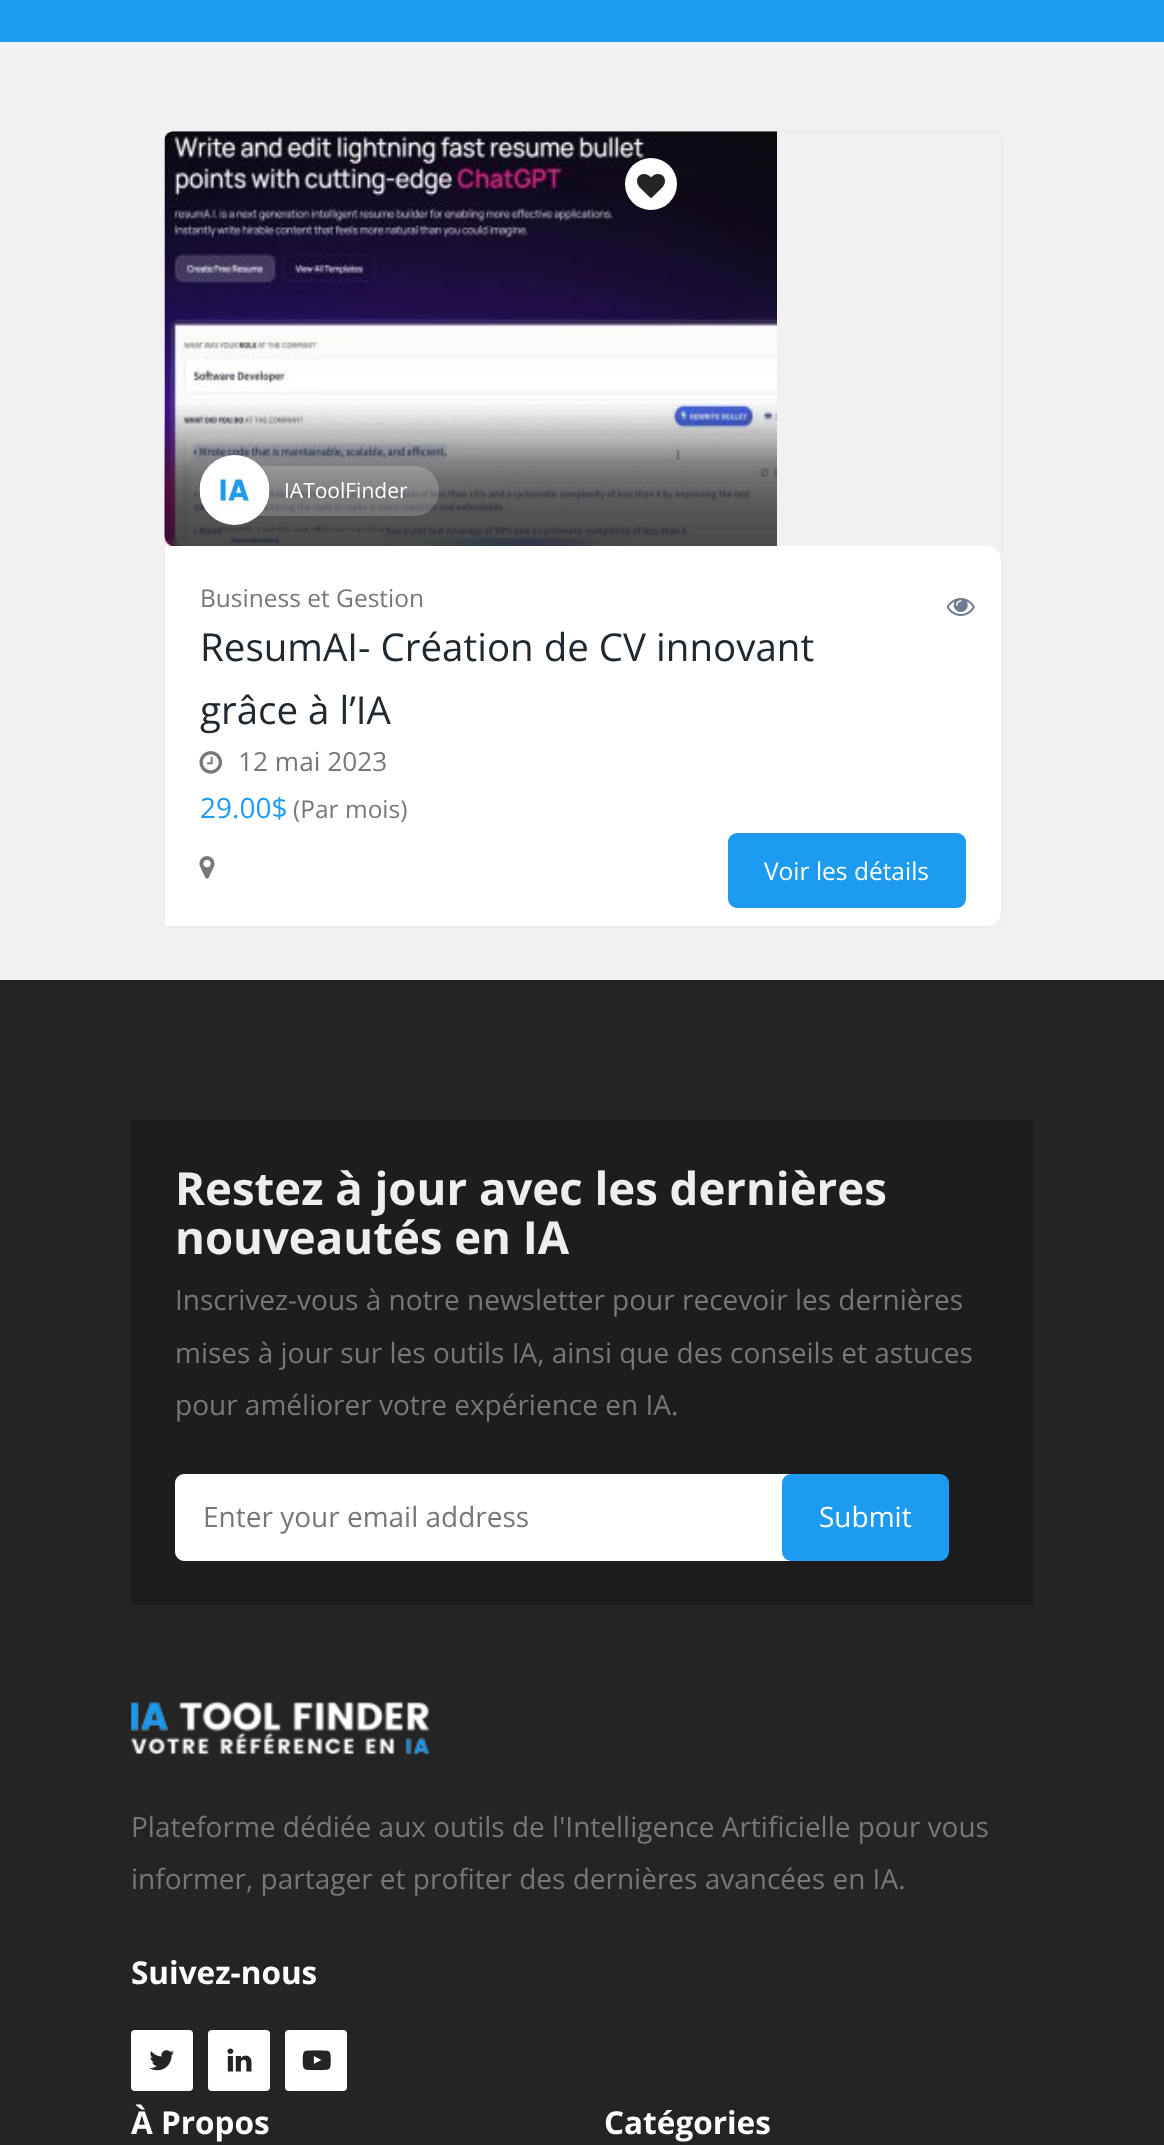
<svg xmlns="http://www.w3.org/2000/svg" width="1164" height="2145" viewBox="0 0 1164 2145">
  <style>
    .t1 { font: 21px Open Sans; fill: #fff; }
    .t2 { font: 24.5px Open Sans; fill: #777; }
    .t3 { font: 38.5px Open Sans; fill: #20292f; }
    .t4 { font: 26.25px Open Sans; fill: #777; }
    .t5 { font: 28px Open Sans; fill: #1d9bf0; }
    .t6 { font: 24.5px Open Sans; fill: #fff; }
    .t7 { font: bold 45.5px Open Sans; fill: #eee; }
    .t8 { font: 28px Open Sans; fill: #777; }
    .t9 { font: 28px Open Sans; fill: #fff; }
    .t10 { font: bold 31.5px Open Sans; fill: #fff; }
  </style>
  <rect width="100%" height="100%" fill="#1d9bf0"/>
  <rect x="0" y="42" width="1164" height="938" fill="#f1f1f1"/>
  <rect x="164" y="131" width="838" height="796" rx="8" fill="none" stroke="#eee" stroke-width="2"/>
  <image x="164" y="131" width="613" height="415" href="images/1.png"/>
  <circle cx="651" cy="184" r="26" fill="#fff"/>
  <image x="637" y="174" width="28" height="24" href="images/2.png"/>
  <image x="164" y="404" width="613" height="142" href="images/3.png"/>
  <path d="M252 466H414C428 466 439 477 439 491C439 505 428 516 414 516H252Z" fill="#ffffff33"/>
  <image x="199" y="455" width="71" height="70" href="images/4.png"/>
  <text x="284" y="498" class="t1">IAToolFinder</text>
  <path d="M165 546H987C994.5 546 1001 552.5 1001 560V912C1001 919.5 994.5 926 987 926H165Z" fill="#fff"/>
  <text x="200" y="607" class="t2">Business et Gestion</text>
  <image x="946" y="598" width="29" height="18" href="images/5.png"/>
  <text x="200" y="661" class="t3">ResumAI- Création de CV innovant</text>
  <text x="200" y="724" class="t3">grâce à l’IA</text>
  <image x="199" y="751" width="23" height="23" href="images/6.png"/>
  <text x="238" y="771" class="t4">12 mai 2023</text>
  <text x="200" y="818" class="t5">29.00$</text>
  <text x="293" y="818" class="t2">(Par mois)</text>
  <image x="199" y="856" width="16" height="23" href="images/7.png"/>
  <rect x="729" y="834" width="236" height="73" rx="8" fill="#1d9bf0" stroke="#1d9bf0" stroke-width="2"/>
  <text x="764" y="880" class="t6">Voir les détails</text>
  <rect x="0" y="980" width="1164" height="1165" fill="#242424"/>
  <rect x="131" y="1120" width="903" height="485" fill="#1d1d1d"/>
  <text x="175" y="1205" class="t7">Restez à jour avec les dernières</text>
  <text x="175" y="1254" class="t7">nouveautés en IA</text>
  <text x="175" y="1310" class="t8">Inscrivez-vous à notre newsletter pour recevoir les dernières</text>
  <text x="175" y="1363" class="t8">mises à jour sur les outils IA, ainsi que des conseils et astuces</text>
  <text x="175" y="1415" class="t8">pour améliorer votre expérience en IA.</text>
  <rect x="176" y="1475" width="731" height="85" rx="8" fill="#fff" stroke="#fff" stroke-width="2"/>
  <text x="203" y="1527" class="t8">Enter your email address</text>
  <rect x="783" y="1475" width="165" height="85" rx="8" fill="#1d9bf0" stroke="#1d9bf0" stroke-width="2"/>
  <text x="819" y="1527" class="t9">Submit</text>
  <image x="131" y="1701" width="298" height="55" href="images/8.png"/>
  <text x="131" y="1837" class="t8">Plateforme dédiée aux outils de l'Intelligence Artificielle pour vous</text>
  <text x="131" y="1889" class="t8">informer, partager et profiter des dernières avancées en IA.</text>
  <text x="131" y="1984" class="t10">Suivez-nous</text>
  <rect x="131" y="2030" width="62" height="61" rx="4" fill="#fff"/>
  <image x="149" y="2050" width="25" height="21" href="images/9.png"/>
  <rect x="208" y="2030" width="62" height="61" rx="4" fill="#fff"/>
  <image x="227" y="2048" width="25" height="24" href="images/10.png"/>
  <rect x="285" y="2030" width="62" height="61" rx="4" fill="#fff"/>
  <image x="302" y="2050" width="29" height="21" href="images/11.png"/>
  <text x="131" y="2134" class="t10">À Propos</text>
  <text x="604" y="2134" class="t10">Catégories</text>
</svg>
